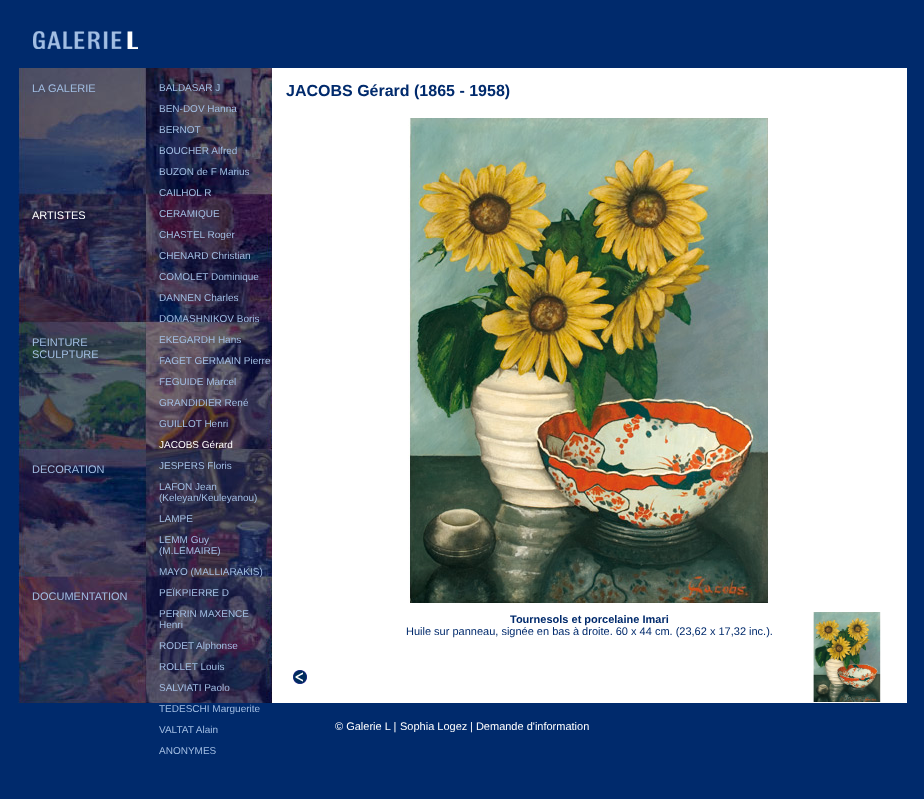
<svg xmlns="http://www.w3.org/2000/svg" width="924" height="799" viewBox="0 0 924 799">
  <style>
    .t1 { font: 11px Liberation Sans; fill: #a2bee3; }
    .t2 { font: 11px Liberation Sans; fill: #fff; }
    .t3 { font: 10px Liberation Sans; fill: #a2bee3; }
    .t4 { font: 10px Liberation Sans; fill: #fff; }
    .t5 { font: bold 16px Liberation Sans; fill: #002a6c; }
    .t6 { font: bold 11px Liberation Sans; fill: #002a6c; }
    .t7 { font: 11px Liberation Sans; fill: #002a6c; }
  </style>
  <defs>
    <clipPath id="clip1"><rect x="18" y="720" width="890" height="12"/></clipPath>
  </defs>
  <rect width="100%" height="100%" fill="#002a6c"/>
  <image x="33" y="31" width="105" height="18" href="images/1.png"/>
  <image x="18" y="68" width="254" height="635" href="images/2.png"/>
  <text x="32" y="92" class="t1">LA GALERIE</text>
  <text x="32" y="219" class="t2">ARTISTES</text>
  <text x="32" y="346" class="t1">PEINTURE</text>
  <text x="32" y="358" class="t1">SCULPTURE</text>
  <text x="32" y="473" class="t1">DECORATION</text>
  <text x="32" y="600" class="t1">DOCUMENTATION</text>
  <text x="159" y="91" class="t3">BALDASAR J</text>
  <text x="159" y="112" class="t3">BEN-DOV Hanna</text>
  <text x="159" y="133" class="t3">BERNOT</text>
  <text x="159" y="154" class="t3">BOUCHER Alfred</text>
  <text x="159" y="175" class="t3">BUZON de F Marius</text>
  <text x="159" y="196" class="t3">CAILHOL R</text>
  <text x="159" y="217" class="t3">CERAMIQUE</text>
  <text x="159" y="238" class="t3">CHASTEL Roger</text>
  <text x="159" y="259" class="t3">CHENARD Christian</text>
  <text x="159" y="280" class="t3">COMOLET Dominique</text>
  <text x="159" y="301" class="t3">DANNEN Charles</text>
  <text x="159" y="322" class="t3">DOMASHNIKOV Boris</text>
  <text x="159" y="343" class="t3">EKEGARDH Hans</text>
  <text x="159" y="364" class="t3">FAGET GERMAIN Pierre</text>
  <text x="159" y="385" class="t3">FEGUIDE Marcel</text>
  <text x="159" y="406" class="t3">GRANDIDIER René</text>
  <text x="159" y="427" class="t3">GUILLOT Henri</text>
  <text x="159" y="448" class="t4">JACOBS Gérard</text>
  <text x="159" y="469" class="t3">JESPERS Floris</text>
  <text x="159" y="490" class="t3">LAFON Jean</text>
  <text x="159" y="501" class="t3">(Keleyan/Keuleyanou)</text>
  <text x="159" y="522" class="t3">LAMPE</text>
  <text x="159" y="543" class="t3">LEMM Guy</text>
  <text x="159" y="554" class="t3">(M.LEMAIRE)</text>
  <text x="159" y="575" class="t3">MAYO (MALLIARAKIS)</text>
  <text x="159" y="596" class="t3">PEÏKPIERRE D</text>
  <text x="159" y="617" class="t3">PERRIN MAXENCE</text>
  <text x="159" y="628" class="t3">Henri</text>
  <text x="159" y="649" class="t3">RODET Alphonse</text>
  <text x="159" y="670" class="t3">ROLLET Louis</text>
  <text x="159" y="691" class="t3">SALVIATI Paolo</text>
  <text x="159" y="712" class="t3">TEDESCHI Marguerite</text>
  <text x="159" y="733" class="t3">VALTAT Alain</text>
  <text x="159" y="754" class="t3">ANONYMES</text>
  <rect x="272" y="68" width="635" height="635" fill="#fff"/>
  <text x="286" y="96" class="t5">JACOBS Gérard (1865 - 1958)</text>
  <image x="293" y="670" width="14" height="14" href="images/3.png"/>
  <image x="813" y="612" width="68" height="90" href="images/4.png"/>
  <image x="408" y="118" width="360" height="485" href="images/5.png"/>
  <text x="510" y="623" class="t6">Tournesols et porcelaine Imari</text>
  <text x="406" y="635" class="t7">Huile sur panneau, signée en bas à droite. 60 x 44 cm. (23,62 x 17,32 inc.).</text>
  <text x="335" y="730" class="t2">© Galerie L |</text>
  <g clip-path="url(#clip1)">
    <text x="400" y="730" class="t2">Sophia Logez</text>
  </g>
  <text x="470" y="730" class="t2">| Demande d'information</text>
</svg>
